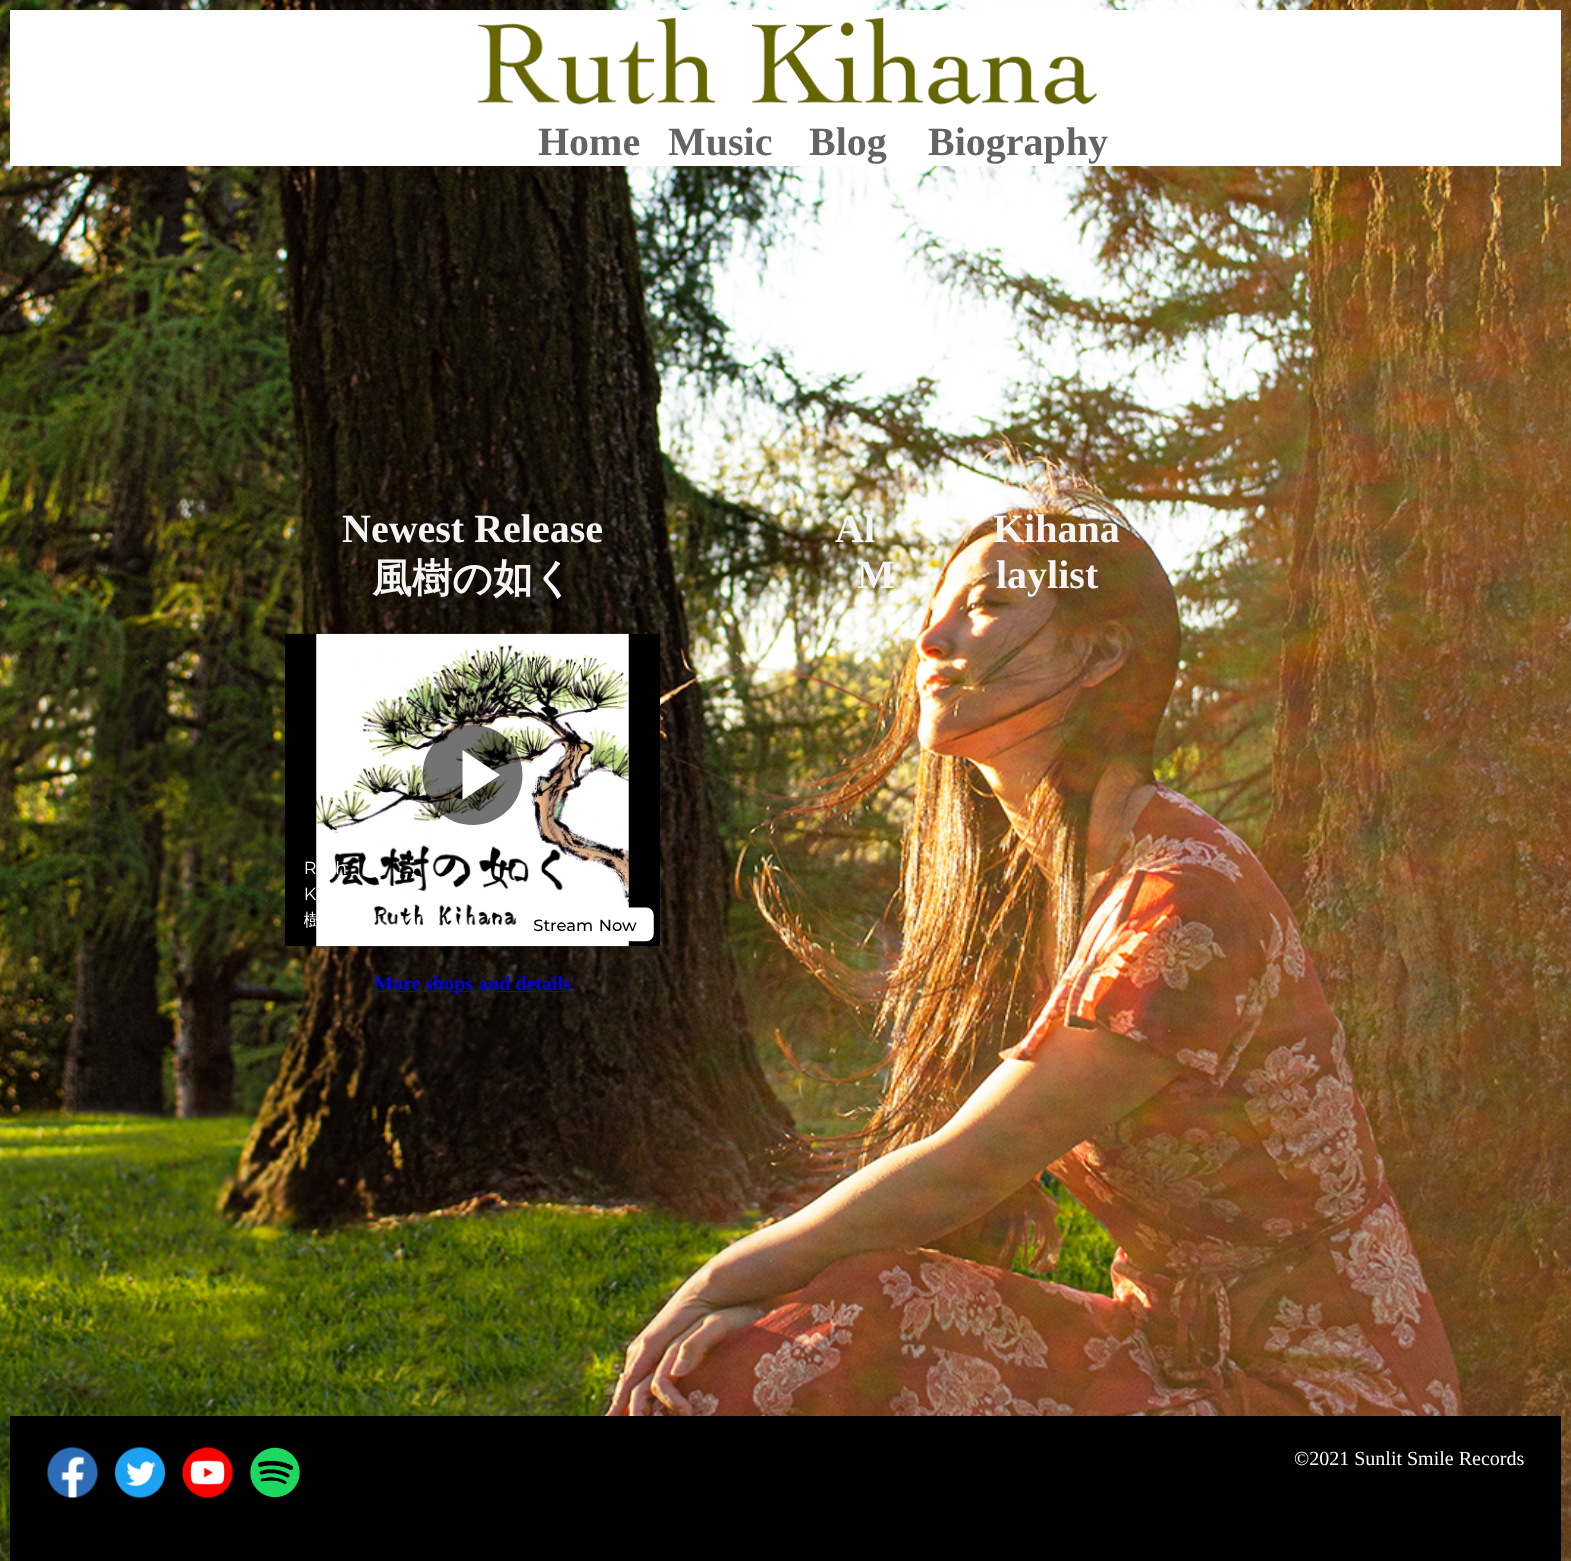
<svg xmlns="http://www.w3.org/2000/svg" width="1571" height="1561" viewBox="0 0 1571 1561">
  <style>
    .t1 { font: bold 40px Liberation Serif; fill: #646464; }
    .t2 { font: bold 40px Liberation Serif; fill: #f5f5f5; }
    .t3 { font: bold 40px WenQuanYi Zen Hei; fill: #f5f5f5; }
    .t4 { font: bold 20px Liberation Serif; fill: #00e; }
    .t5 { font: 20px Liberation Serif; fill: #fcfcfc; }
  </style>
  <rect width="100%" height="100%" fill="#fff"/>
  <image x="0" y="0" width="1571" height="1561" href="images/2.png"/>
  <rect x="10" y="10" width="1551" height="156" fill="#fff"/>
  <image x="477" y="17" width="621" height="88" href="images/1.png"/>
  <text x="538" y="155" class="t1">Home</text>
  <text x="668" y="155" class="t1">Music</text>
  <text x="809" y="155" class="t1">Blog</text>
  <text x="928" y="155" class="t1">Biography</text>
  <text x="342" y="542" class="t2">Newest Release</text>
  <text x="372" y="592" class="t3">風樹の如く</text>
  <image x="285" y="633" width="375" height="314" href="images/3.png"/>
  <rect x="374" y="991" width="197" height="1" fill="#00e"/>
  <text x="374" y="990" class="t4">More shops and details</text>
  <text x="835" y="542" class="t2">Al</text>
  <text x="993" y="542" class="t2">Kihana</text>
  <text x="857" y="588" class="t2">M</text>
  <text x="996" y="588" class="t2">laylist</text>
  <rect x="10" y="1416" width="1551" height="145" fill="#000"/>
  <image x="47" y="1447" width="51" height="51" href="images/4.png"/>
  <image x="115" y="1447" width="50" height="51" href="images/5.png"/>
  <image x="182" y="1447" width="51" height="51" href="images/6.png"/>
  <image x="250" y="1447" width="50" height="51" href="images/7.png"/>
  <text x="1294" y="1465" class="t5">©2021 Sunlit Smile Records</text>
</svg>
